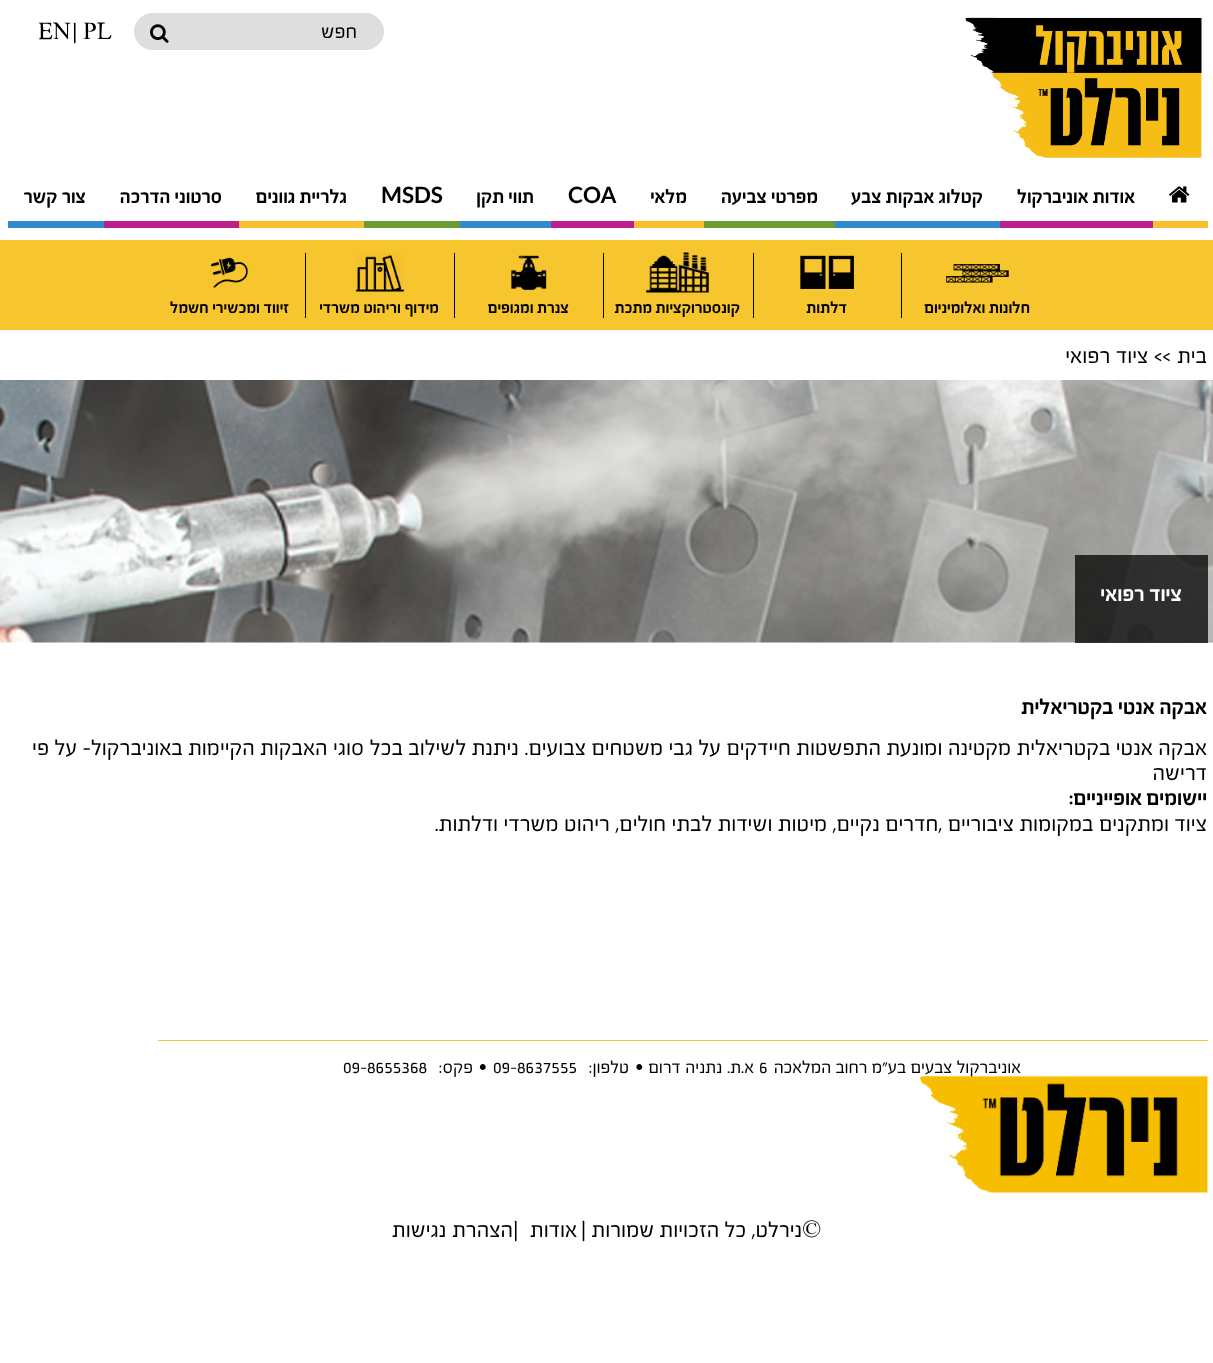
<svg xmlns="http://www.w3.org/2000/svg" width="1213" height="1363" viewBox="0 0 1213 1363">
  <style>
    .t1 { font: 22.5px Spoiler; direction: rtl; fill: #000; }
    .t2 { font: 25px Spoiler; fill: #000; }
    .t3 { font: bold 22.5px Spoiler; direction: rtl; fill: #000; }
    .t4 { font: bold 22.5px Lato; fill: #000; }
    .t5 { font: bold 18.75px Spoiler; direction: rtl; fill: #000; }
    .t6 { font: 25px Spoiler; direction: rtl; fill: #000; }
    .t7 { font: bold 25px Spoiler; direction: rtl; fill: #fff; }
    .t8 { font: bold 25px Spoiler; direction: rtl; fill: #000; }
    .t9 { font: 20px Spoiler; direction: rtl; fill: #000; }
    .t10 { font: 20px Spoiler; fill: #000; }
    .t11 { font: 300 20px Lato; direction: rtl; fill: #000; }
    .t12 { font: 300 20px Lato; fill: #000; }
  </style>
  <rect width="100%" height="100%" fill="#fff"/>
  <image x="965" y="17" width="237" height="142" href="images/1.png"/>
  <rect x="134.5" y="13.5" width="249" height="36" rx="18" fill="#dedede" stroke="#ddd"/>
  <text x="357" y="38" class="t1">חפש</text>
  <image x="150" y="24" width="19" height="19" href="images/2.png"/>
  <text x="83" y="39" class="t2">PL</text>
  <text x="72" y="39" class="t2">|</text>
  <text x="38" y="39" class="t2">EN</text>
  <rect x="1153" y="221" width="55" height="7" fill="#f8bf2e"/>
  <image x="1169" y="186" width="21" height="17" href="images/3.png"/>
  <rect x="1000" y="221" width="153" height="7" fill="#bd208d"/>
  <text x="1135" y="203" class="t3">אודות אוניברקול</text>
  <rect x="835" y="221" width="165" height="7" fill="#2f8bcc"/>
  <text x="983" y="203" class="t3">קטלוג אבקות צבע</text>
  <rect x="704" y="221" width="131" height="7" fill="#6b9c34"/>
  <text x="818" y="203" class="t3">מפרטי צביעה</text>
  <rect x="634" y="221" width="70" height="7" fill="#f8bf2e"/>
  <text x="687" y="203" class="t3">מלאי</text>
  <rect x="551" y="221" width="83" height="7" fill="#bd208d"/>
  <text x="568" y="203" class="t4">COA</text>
  <rect x="460" y="221" width="91" height="7" fill="#2f8bcc"/>
  <text x="534" y="203" class="t3">תווי תקן</text>
  <rect x="364" y="221" width="96" height="7" fill="#6b9c34"/>
  <text x="381" y="203" class="t4">MSDS</text>
  <rect x="239" y="221" width="125" height="7" fill="#f8bf2e"/>
  <text x="347" y="203" class="t3">גלריית גוונים</text>
  <rect x="104" y="221" width="135" height="7" fill="#bd208d"/>
  <text x="222" y="203" class="t3">סרטוני הדרכה</text>
  <rect x="8" y="221" width="96" height="7" fill="#2f8bcc"/>
  <text x="86" y="203" class="t3">צור קשר</text>
  <rect x="0" y="240" width="1213" height="90" fill="#f7c52d"/>
  <rect x="901" y="253" width="1" height="65" fill="#000"/>
  <image x="946" y="264" width="63" height="19" href="images/4.png"/>
  <text x="1030" y="313" class="t5">חלונות ואלומיניום</text>
  <image x="800" y="255" width="54" height="34" href="images/5.png"/>
  <text x="847" y="313" class="t5">דלתות</text>
  <rect x="753" y="253" width="1" height="65" fill="#000"/>
  <image x="646" y="252" width="63" height="41" href="images/6.png"/>
  <text x="740" y="313" class="t5">קונסטרוקציות מתכת</text>
  <rect x="603" y="253" width="1" height="65" fill="#000"/>
  <image x="511" y="255" width="36" height="35" href="images/7.png"/>
  <text x="569" y="313" class="t5">צנרת ומגופים</text>
  <rect x="454" y="253" width="1" height="65" fill="#000"/>
  <image x="355" y="253" width="50" height="39" href="images/8.png"/>
  <text x="439" y="313" class="t5">מידוף וריהוט משרדי</text>
  <rect x="305" y="253" width="1" height="65" fill="#000"/>
  <image x="211" y="257" width="38" height="31" href="images/9.png"/>
  <text x="289" y="313" class="t5">זיווד ומכשירי חשמל</text>
  <text x="1207" y="363" class="t6">בית</text>
  <text x="1171" y="363" word-spacing="1" class="t6">&gt;&gt; ציוד רפואי</text>
  <image x="0" y="380" width="1213" height="263" href="images/10.png"/>
  <rect x="1075" y="555" width="133" height="88" fill="#000000bf"/>
  <text x="1182" y="601" class="t7">ציוד רפואי</text>
  <text x="1207" y="714" class="t8">אבקה אנטי בקטריאלית</text>
  <text x="1207" y="755" word-spacing="0.75" class="t6">אבקה אנטי בקטריאלית מקטינה ומונעת התפשטות חיידקים על גבי משטחים צבועים. ניתנת לשילוב בכל סוגי האבקות הקיימות באוניברקול- על פי</text>
  <text x="1207" y="780" class="t6">דרישה</text>
  <text x="1207" y="805" class="t8">יישומים אופייניים:</text>
  <text x="1207" y="831" word-spacing="0.75" class="t6">ציוד ומתקנים במקומות ציבוריים ,חדרים נקיים, מיטות ושידות לבתי חולים, ריהוט משרדי ודלתות.</text>
  <rect x="158" y="1040" width="1050" height="1" fill="#f7c52d"/>
  <text x="1021" y="1073" word-spacing="0.5" class="t9">אוניברקול צבעים בע"מ רחוב המלאכה</text>
  <text x="759" y="1073" class="t10">6</text>
  <text x="754" y="1073" word-spacing="1" class="t9">א.ת. נתניה דרום</text>
  <text x="645" y="1073" class="t11">•</text>
  <text x="629" y="1073" class="t9">טלפון:</text>
  <text x="493" y="1073" class="t10">09-8637555</text>
  <text x="477" y="1073" class="t12">•</text>
  <text x="473" y="1073" class="t9">פקס:</text>
  <text x="343" y="1073" class="t10">09-8655368</text>
  <image x="920" y="1076" width="288" height="117" href="images/11.png"/>
  <text x="821" y="1237" word-spacing="0.5" class="t6">©נירלט, כל הזכויות שמורות |</text>
  <text x="577" y="1237" class="t6">אודות</text>
  <text x="513" y="1237" class="t2">|</text>
  <text x="513" y="1237" word-spacing="1" class="t6">הצהרת נגישות</text>
</svg>
